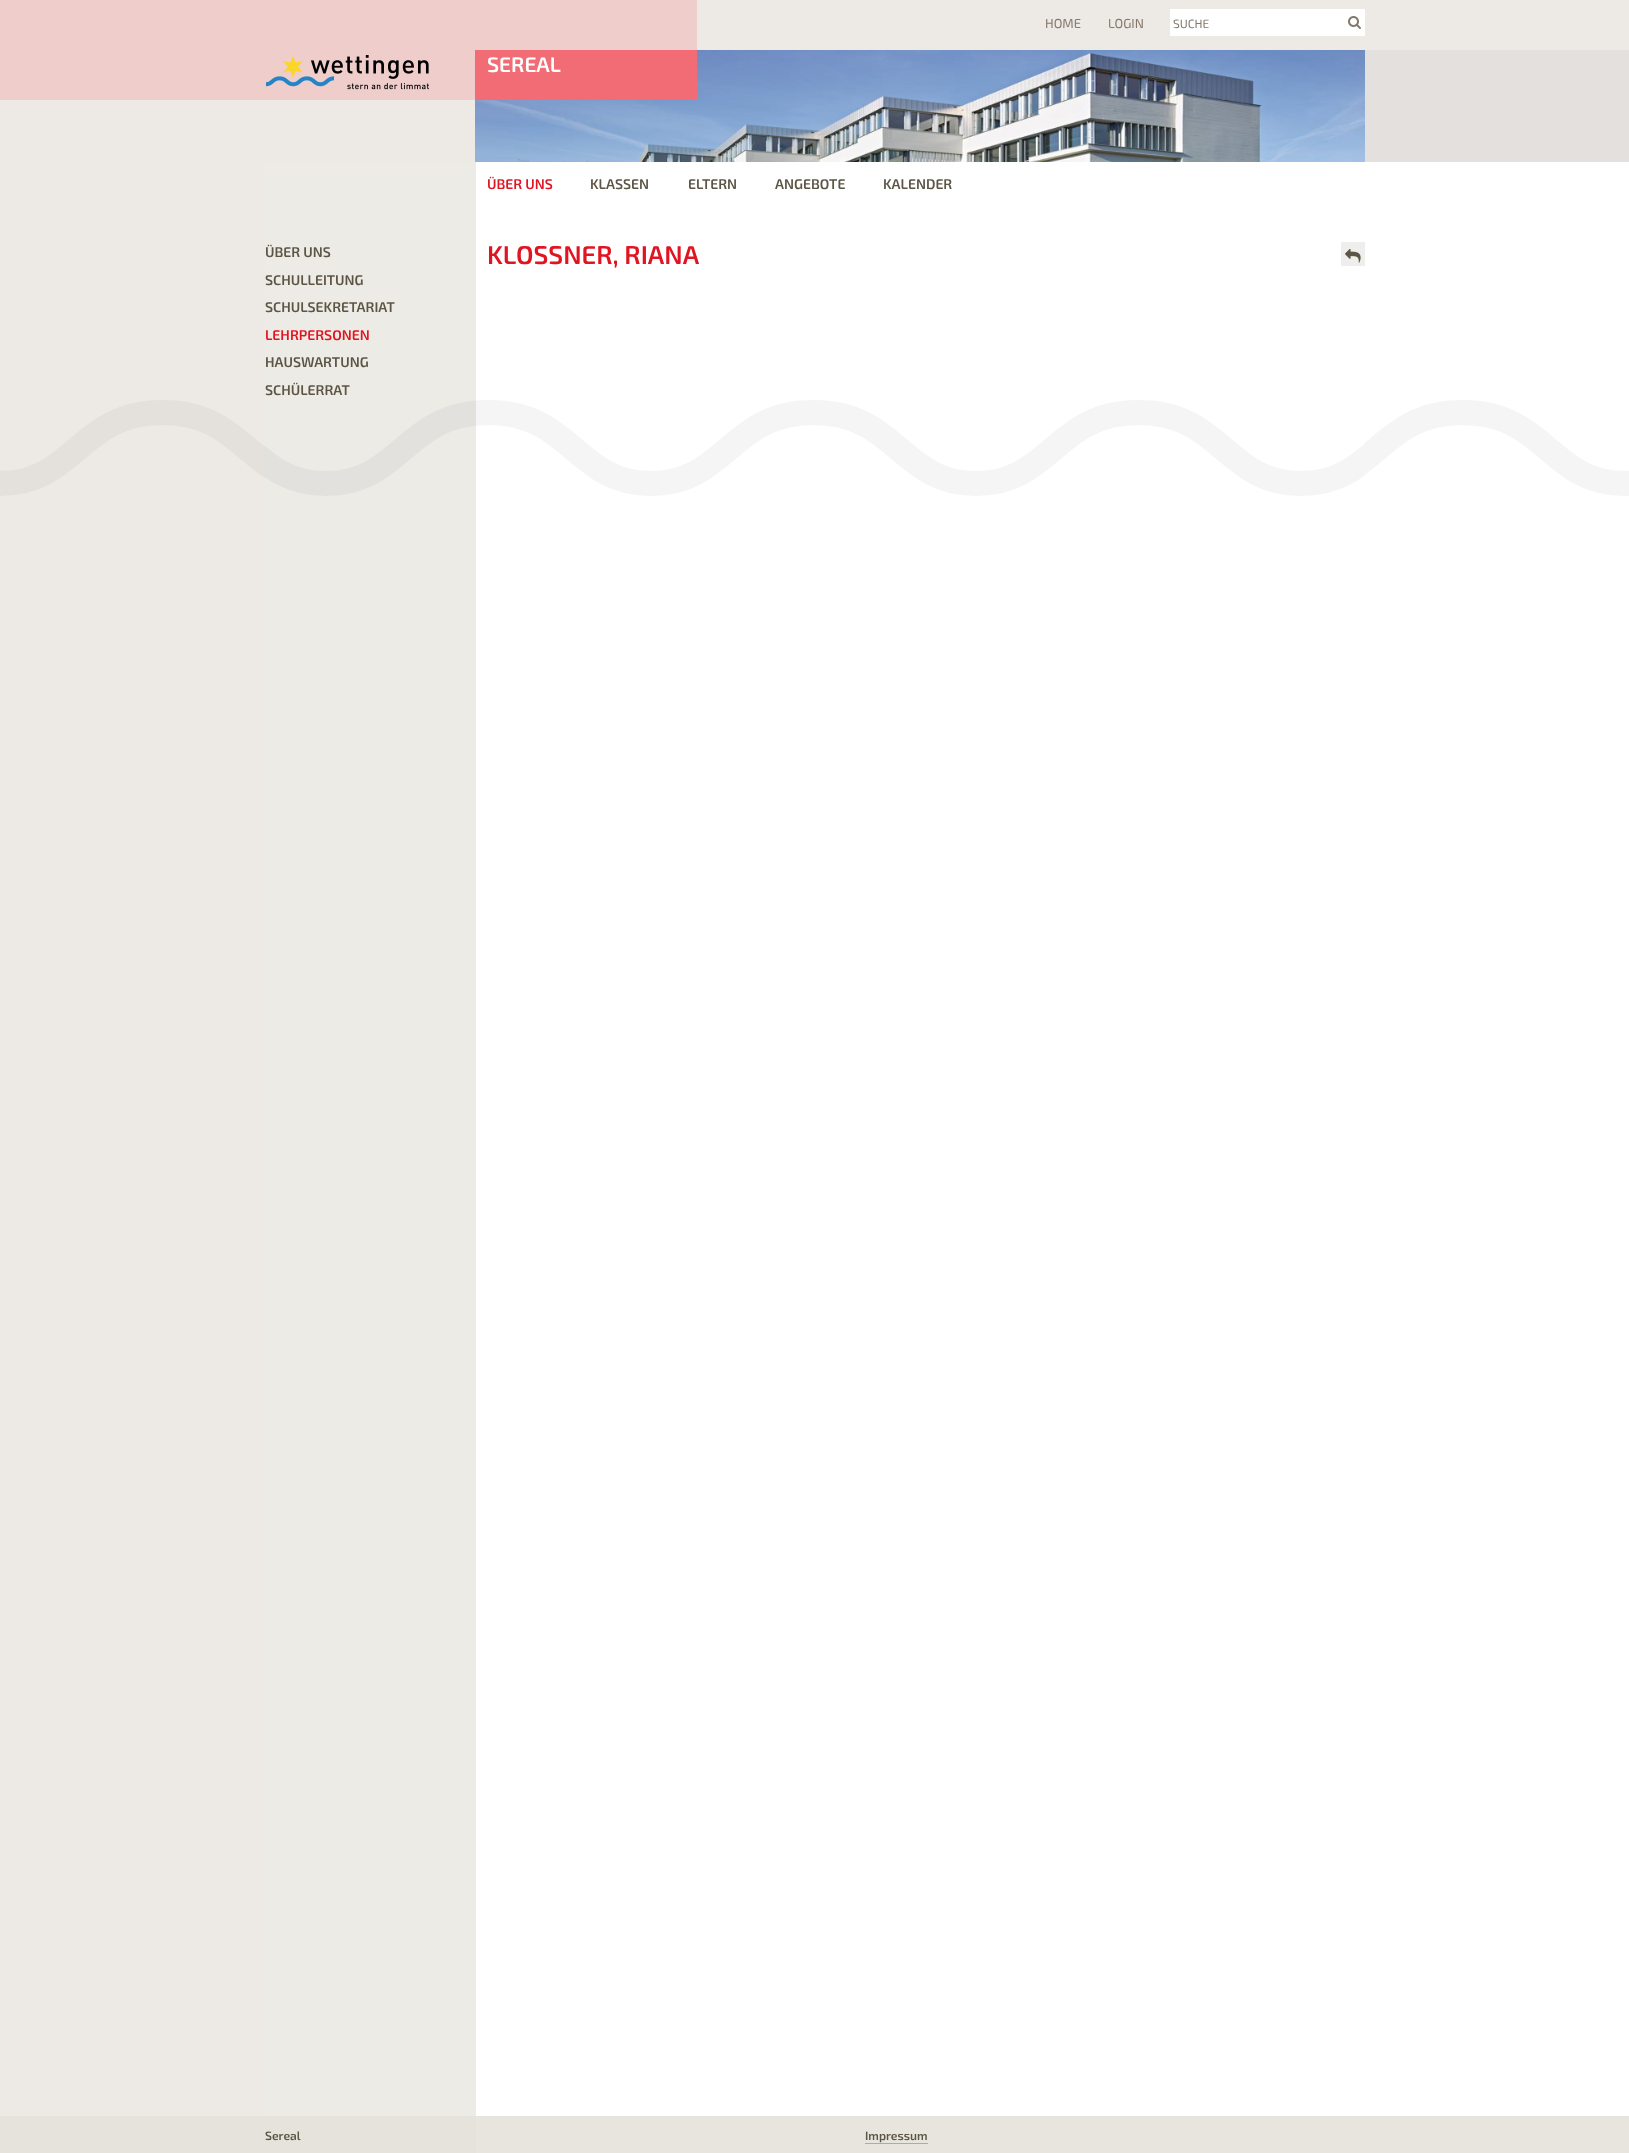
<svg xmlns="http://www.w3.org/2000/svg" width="1629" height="2153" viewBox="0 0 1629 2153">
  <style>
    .t1 { font: 13px 'Exo 2'; fill: #84786b; }
    .t2 { font: 12px 'Exo 2'; fill: #84786b; }
    .t3 { font: 600 21px 'Exo 2'; fill: #fff; }
    .t4 { font: 600 14px 'Exo 2'; fill: #e11422; }
    .t5 { font: 600 14px 'Exo 2'; fill: #5c5545; }
    .t6 { font: 600 25.75px 'Exo 2'; fill: #e11422; }
    .t7 { font: 600 12px 'Exo 2'; fill: #5c5545; }
  </style>
  <rect width="100%" height="100%" fill="#fff"/>
  <image x="0" y="0" width="1629" height="2153" href="images/1.png"/>
  <rect x="265" y="0" width="1100" height="162" fill="#edeae6"/>
  <text x="1045" y="28" class="t1">HOME</text>
  <text x="1108" y="28" class="t1">LOGIN</text>
  <rect x="1170" y="9" width="195" height="27" fill="#fff"/>
  <text x="1173" y="28" class="t2">SUCHE</text>
  <image x="1348" y="16" width="13" height="13" href="images/2.png"/>
  <image x="475" y="50" width="890" height="112" href="images/3.png"/>
  <rect x="265" y="0" width="432" height="100" fill="#f26c753b"/>
  <image x="266" y="55" width="163" height="35" href="images/4.png"/>
  <rect x="475" y="50" width="222" height="50" fill="#f26c75"/>
  <text x="487" y="72" class="t3">SEREAL</text>
  <rect x="265" y="162" width="1100" height="1991" fill="#fff"/>
  <image x="265" y="162" width="1100" height="1991" href="images/5.png"/>
  <text x="487" y="189" class="t4">ÜBER UNS</text>
  <text x="590" y="189" class="t5">KLASSEN</text>
  <text x="688" y="189" class="t5">ELTERN</text>
  <text x="775" y="189" class="t5">ANGEBOTE</text>
  <text x="883" y="189" class="t5">KALENDER</text>
  <text x="265" y="257" class="t5">ÜBER UNS</text>
  <text x="265" y="285" class="t5">SCHULLEITUNG</text>
  <text x="265" y="312" class="t5">SCHULSEKRETARIAT</text>
  <text x="265" y="340" class="t4">LEHRPERSONEN</text>
  <text x="265" y="367" class="t5">HAUSWARTUNG</text>
  <text x="265" y="395" class="t5">SCHÜLERRAT</text>
  <text x="487" y="264" class="t6">KLOSSNER, RIANA</text>
  <rect x="1341" y="242" width="24" height="24" fill="#efeeec"/>
  <image x="1345" y="249" width="16" height="14" href="images/6.png"/>
  <rect x="0" y="2116" width="1629" height="37" fill="#e4e1d9de"/>
  <text x="265" y="2140" class="t7">Sereal</text>
  <text x="865" y="2140" class="t7">Impressum</text>
  <rect x="865" y="2143" width="63" height="1" fill="#b0aba0"/>
</svg>
